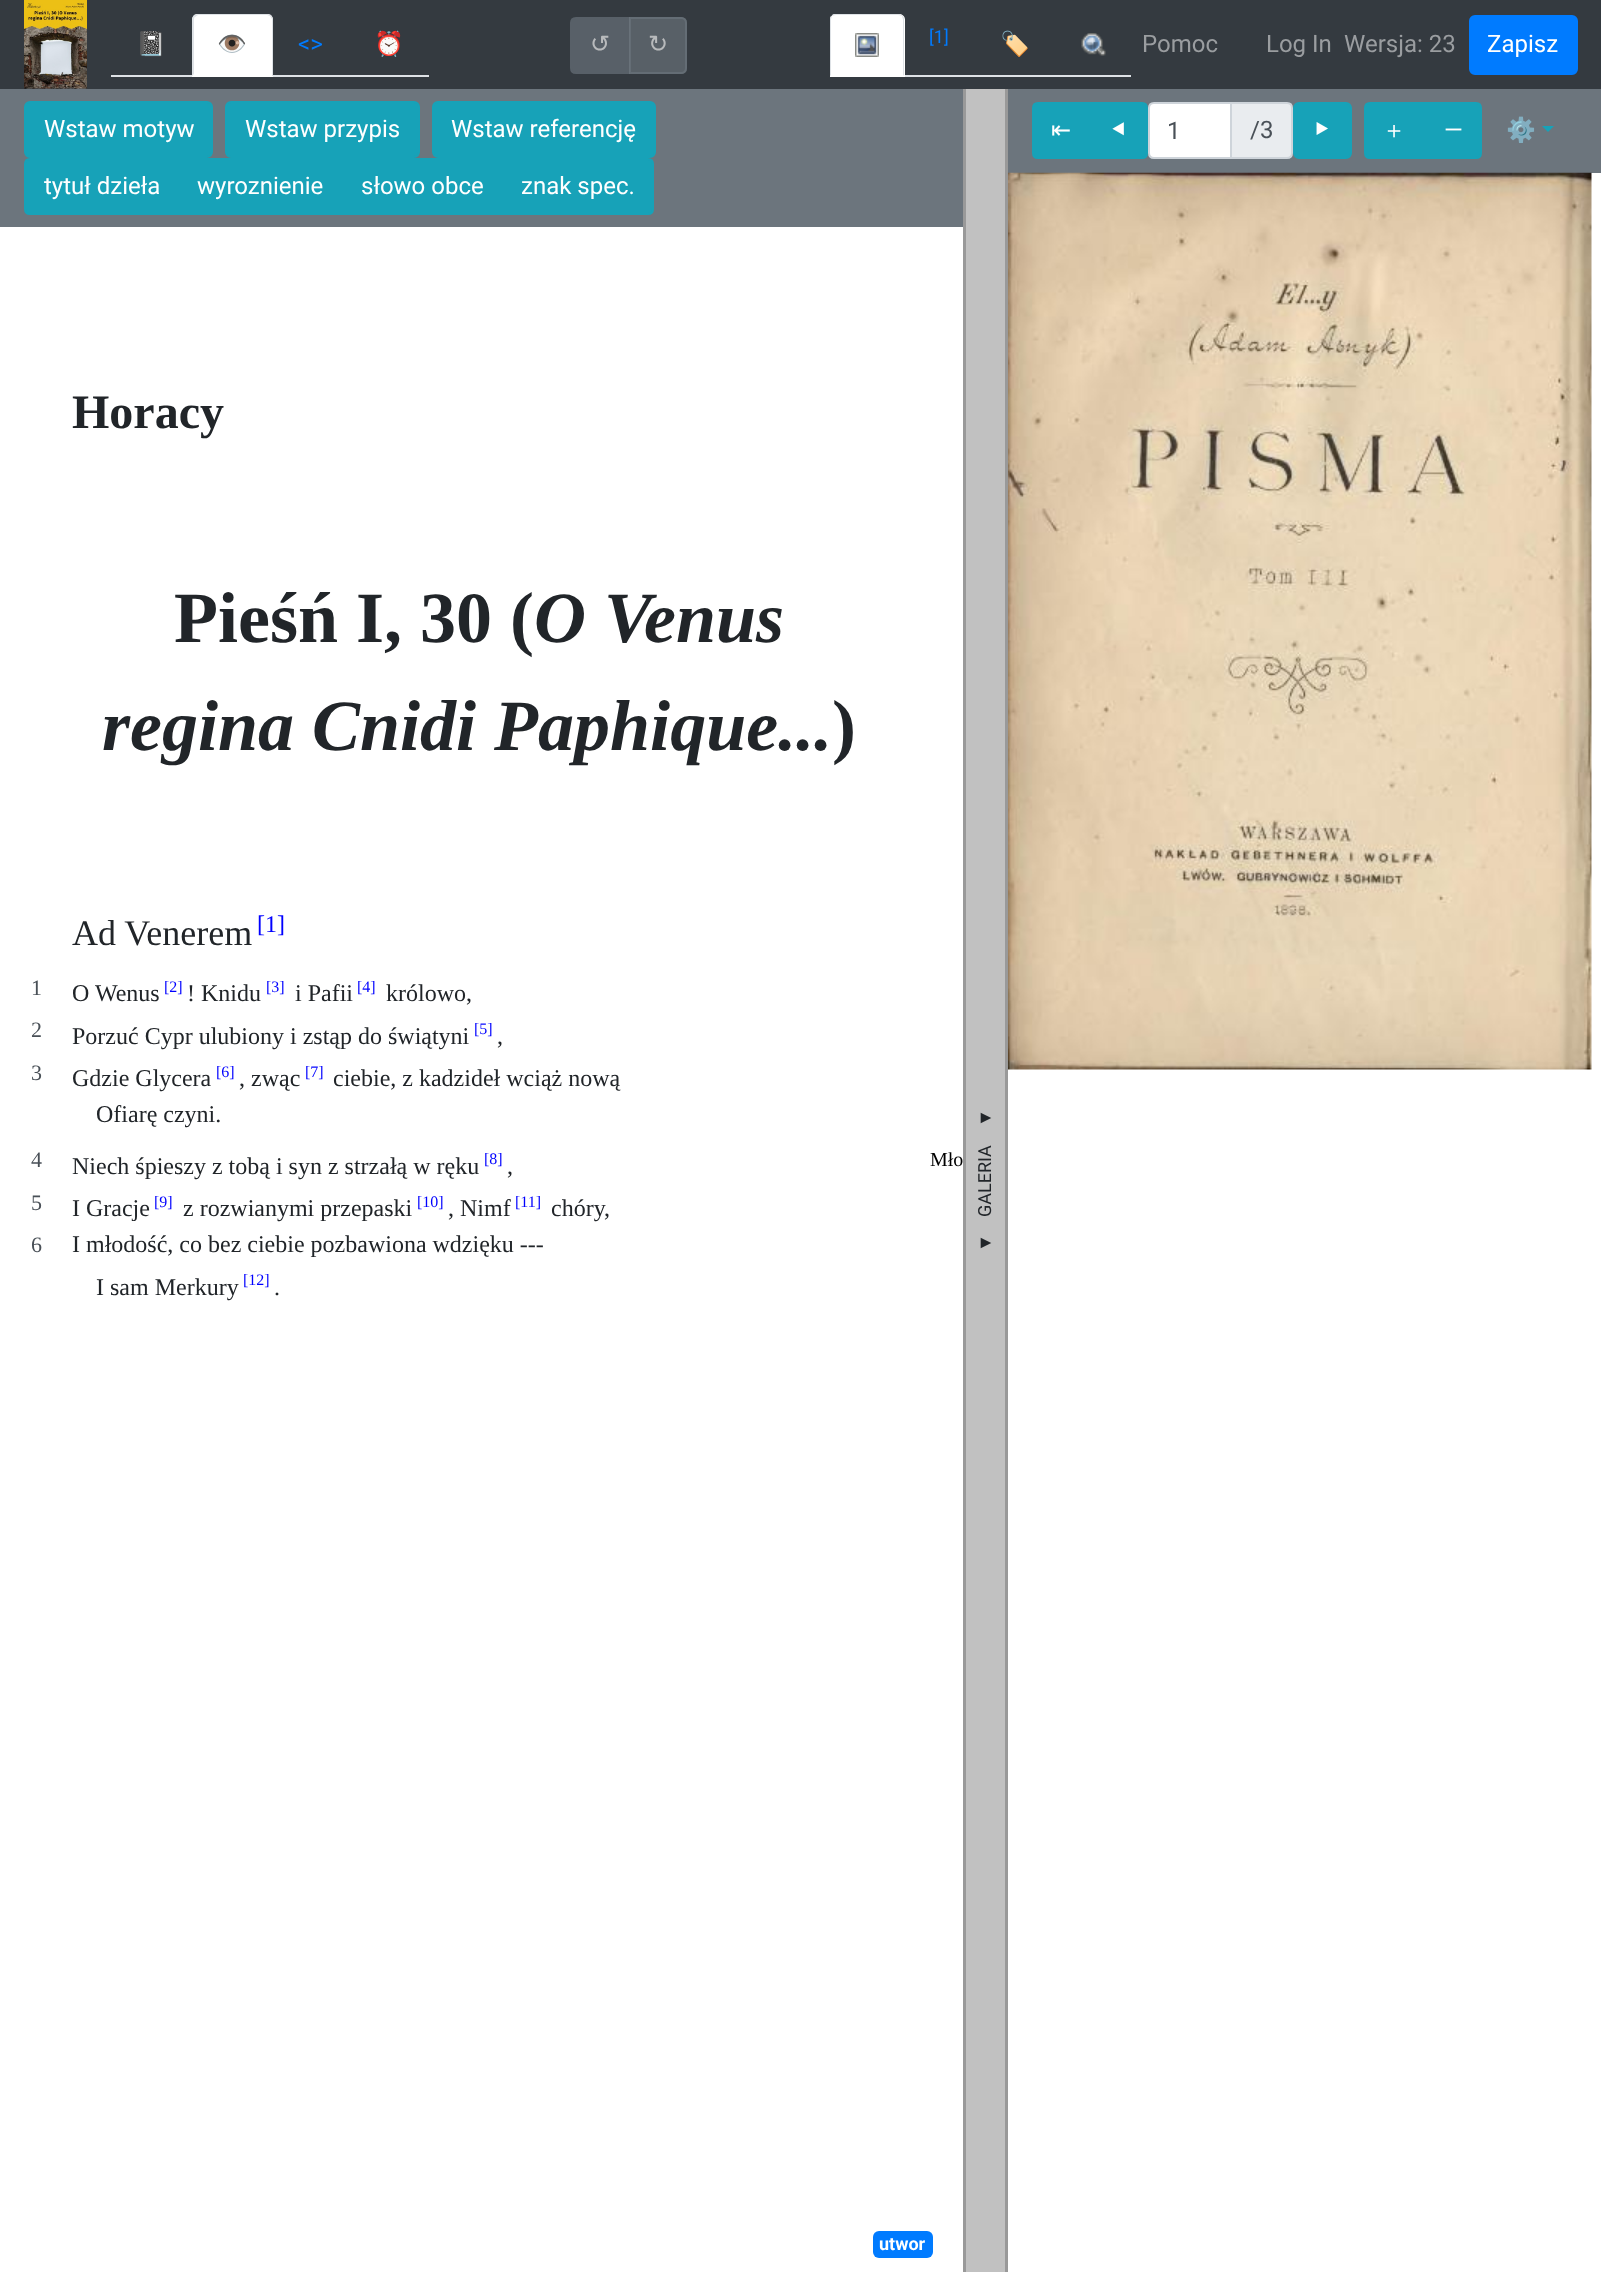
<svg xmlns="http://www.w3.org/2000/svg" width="1601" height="2272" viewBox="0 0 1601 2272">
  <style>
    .t1 { font: 24px Noto Color Emoji; fill: #007bff; }
    .t2 { font: 24px Noto Color Emoji; fill: #495057; }
    .t3 { font: 24px Roboto; fill: #007bff; }
    .t4 { font: 24px DejaVu Sans; fill: #b8babc; }
    .t5 { font: 18px Roboto; fill: #007bff; }
    .t6 { font: 24px Roboto; fill: #9a9da0; }
    .t7 { font: 24px Roboto; fill: #fff; }
    .t8 { font: bold 48px Liberation Serif; fill: #212529; }
    .t9 { font: bold 72px Liberation Serif; fill: #212529; }
    .t10 { font: italic bold 72px Liberation Serif; fill: #212529; }
    .t11 { font: 36px Liberation Serif; fill: #212529; }
    .t12 { font: 24px Liberation Serif; fill: #00f; }
    .t13 { font: 22px Liberation Serif; fill: #495057; }
    .t14 { font: 24px Liberation Serif; fill: #212529; }
    .t15 { font: 16px Liberation Serif; fill: #00f; }
    .t16 { font: 20px Liberation Serif; fill: #000; }
    .t17 { font: bold 18px Roboto; fill: #fff; }
    .t18 { font: 18px Liberation Sans; fill: #212529; }
    .t19 { font: 18px Roboto; fill: #212529; }
    .t20 { font: 24px DejaVu Sans; fill: #fff; }
    .t21 { font: 24px FreeSans; fill: #fff; }
    .t22 { font: 24px Roboto; fill: #495057; }
    .t23 { font: 500 24px WenQuanYi Zen Hei; fill: #fff; }
    .t24 { font: 24px Noto Color Emoji; fill: #17a2b8; }
  </style>
  <rect width="100%" height="100%" fill="#fff"/>
  <rect x="0" y="0" width="1601" height="89" fill="#343a40"/>
  <image x="24" y="0" width="63" height="89" href="images/1.png"/>
  <rect x="111" y="75" width="318" height="2" fill="#dee2e6"/>
  <text x="136" y="52" class="t1">📓</text>
  <path d="M198 14H267C270.5 14 273 16.5 273 20V77H192V20C192 16.5 194.5 14 198 14Z" fill="#fff"/>
  <path d="M198 14C197 14 195 14 194 15L195 17L198 15H267L270 16L271 15C270 14 268 14 267 14Z" fill="#dee2e6"/>
  <path d="M271 15C272 16 273 18 273 20V76H272V75V19L270 16Z" fill="#dee2e6"/>
  <path d="M192 20V76L194 74V20C194 19 194 17 195 17L194 15C193 16 192 18 192 20Z" fill="#dee2e6"/>
  <text x="217" y="52" class="t2">👁</text>
  <text x="298" y="52" class="t3">&lt;&gt;</text>
  <text x="374" y="52" class="t1">⏰</text>
  <path d="M576 18H629V73H576C573 73 571 71 571 68V23C571 20 573 18 576 18Z" fill="#586068" stroke="#586068" stroke-width="2"/>
  <text x="590" y="52" class="t4">↺</text>
  <path d="M629 17H681C684.5 17 687 19.5 687 23V68C687 71.5 684.5 74 681 74H629Z" fill="#6c757da6"/>
  <path d="M630 18H681C684 18 686 20 686 23V68C686 71 684 73 681 73H630Z" fill="none" stroke="#6c757da6" stroke-width="2"/>
  <text x="648" y="52" class="t4">↻</text>
  <rect x="905" y="75" width="226" height="2" fill="#dee2e6"/>
  <path d="M836 14H899C902.5 14 905 16.5 905 20V77H830V20C830 16.5 832.5 14 836 14Z" fill="#fff"/>
  <path d="M836 14C834 14 832 14 832 16C833 16 834 15 836 15H898C900 15 901 16 902 16C902 14 900 14 898 14Z" fill="#dee2e6"/>
  <path d="M904 76V20C904 18 904 16 902 16C902 17 903 18 903 20V75Z" fill="#dee2e6"/>
  <path d="M904 76L903 75H831L830 76Z" fill="#fff"/>
  <path d="M832 16C830 16 830 18 830 20V76L831 75V20C831 18 832 17 832 16Z" fill="#dee2e6"/>
  <image x="855" y="33" width="24" height="24" href="images/2.png"/>
  <text x="929" y="43" class="t5">[1]</text>
  <text x="1000" y="52" class="t1">🏷</text>
  <image x="1081" y="33" width="25" height="23" href="images/3.png"/>
  <text x="1142" y="52" class="t6">Pomoc</text>
  <text x="1266" y="52" class="t6">Log In</text>
  <text x="1344" y="52" class="t6">Wersja: 23</text>
  <rect x="1470" y="16" width="107" height="58" rx="5" fill="#007bff" stroke="#007bff" stroke-width="2"/>
  <text x="1487" y="52" class="t7">Zapisz</text>
  <rect x="0" y="89" width="963" height="138" fill="#6c757d"/>
  <rect x="25" y="102" width="187" height="55" rx="5" fill="#17a2b8" stroke="#17a2b8" stroke-width="2"/>
  <text x="44" y="137" class="t7">Wstaw motyw</text>
  <rect x="226" y="102" width="193" height="55" rx="5" fill="#17a2b8" stroke="#17a2b8" stroke-width="2"/>
  <text x="245" y="137" class="t7">Wstaw przypis</text>
  <rect x="433" y="102" width="222" height="55" rx="5" fill="#17a2b8" stroke="#17a2b8" stroke-width="2"/>
  <text x="451" y="137" class="t7">Wstaw referencję</text>
  <path d="M30 159H179V214H30C27 214 25 212 25 209V164C25 161 27 159 30 159Z" fill="#17a2b8" stroke="#17a2b8" stroke-width="2"/>
  <text x="44" y="194" class="t7">tytuł dzieła</text>
  <rect x="180" y="158" width="323" height="57" fill="#17a2b8"/>
  <text x="197" y="194" class="t7">wyroznienie</text>
  <text x="361" y="194" class="t7">słowo obce</text>
  <path d="M504 159H648C651 159 653 161 653 164V209C653 212 651 214 648 214H504Z" fill="#17a2b8" stroke="#17a2b8" stroke-width="2"/>
  <text x="521" y="194" class="t7">znak spec.</text>
  <text x="72" y="428" class="t8">Horacy</text>
  <text x="174" y="642" class="t9">Pieśń I, 30 (</text>
  <text x="534" y="642" class="t10">O Venus</text>
  <text x="102" y="750" class="t10">regina Cnidi Paphique...</text>
  <text x="832" y="750" class="t9">)</text>
  <text x="72" y="945" class="t11">Ad Venerem</text>
  <text x="257" y="932" class="t12">[1]</text>
  <text x="31" y="995" class="t13">1</text>
  <text x="72" y="1001" class="t14">O Wenus</text>
  <text x="164" y="992" class="t15">[2]</text>
  <text x="187" y="1001" class="t14">! Knidu</text>
  <text x="266" y="992" class="t15">[3]</text>
  <text x="295" y="1001" class="t14">i Pafii</text>
  <text x="357" y="992" class="t15">[4]</text>
  <text x="386" y="1001" class="t14">królowo,</text>
  <text x="31" y="1037" class="t13">2</text>
  <text x="72" y="1044" class="t14">Porzuć Cypr ulubiony i zstąp do świątyni</text>
  <text x="474" y="1034" class="t15">[5]</text>
  <text x="497" y="1044" class="t14">,</text>
  <text x="31" y="1080" class="t13">3</text>
  <text x="72" y="1086" class="t14">Gdzie Glycera</text>
  <text x="216" y="1077" class="t15">[6]</text>
  <text x="239" y="1086" class="t14">, zwąc</text>
  <text x="305" y="1077" class="t15">[7]</text>
  <text x="333" y="1086" class="t14">ciebie, z kadzideł wciąż nową</text>
  <text x="96" y="1122" class="t14">Ofiarę czyni.</text>
  <text x="31" y="1167" class="t13">4</text>
  <text x="72" y="1174" class="t14">Niech śpieszy z tobą i syn z strzałą w ręku</text>
  <text x="484" y="1164" class="t15">[8]</text>
  <text x="507" y="1174" class="t14">,</text>
  <text x="930" y="1166" class="t16">Mło</text>
  <text x="31" y="1210" class="t13">5</text>
  <text x="72" y="1216" class="t14">I Gracje</text>
  <text x="154" y="1207" class="t15">[9]</text>
  <text x="183" y="1216" class="t14">z rozwianymi przepaski</text>
  <text x="417" y="1207" class="t15">[10]</text>
  <text x="448" y="1216" class="t14">, Nimf</text>
  <text x="515" y="1207" class="t15">[11]</text>
  <text x="551" y="1216" class="t14">chóry,</text>
  <text x="31" y="1252" class="t13">6</text>
  <text x="72" y="1252" class="t14">I młodość, co bez ciebie pozbawiona wdzięku ---</text>
  <text x="96" y="1295" class="t14">I sam Merkury</text>
  <text x="243" y="1285" class="t15">[12]</text>
  <text x="274" y="1295" class="t14">.</text>
  <rect x="873" y="2231" width="60" height="27" rx="6" fill="#007bff"/>
  <text x="879" y="2250" class="t17">utwor</text>
  <rect x="966" y="89" width="39" height="2183" fill="#c1c1c1"/>
  <rect x="1005" y="89" width="3" height="2183" fill="#999"/>
  <rect x="963" y="89" width="3" height="2183" fill="#999"/>
  <text x="991" y="1127" transform="rotate(-90 991 1127)" class="t18">▼</text>
  <text x="991" y="1217" transform="rotate(-90 991 1217)" class="t19">GALERIA</text>
  <text x="991" y="1252" transform="rotate(-90 991 1252)" class="t18">▼</text>
  <rect x="1008" y="89" width="593" height="84" fill="#6c757d"/>
  <path d="M1038 103H1090V158H1038C1035 158 1033 156 1033 153V108C1033 105 1035 103 1038 103Z" fill="#17a2b8" stroke="#17a2b8" stroke-width="2"/>
  <text x="1051" y="138" class="t20">⇤</text>
  <path d="M1090 103H1142C1145 103 1147 105 1147 108V153C1147 156 1145 158 1142 158H1090Z" fill="#17a2b8" stroke="#17a2b8" stroke-width="2"/>
  <text x="1109" y="138" class="t21">⯇</text>
  <path d="M1231 103H1287C1290 103 1292 105 1292 108V153C1292 156 1290 158 1287 158H1231Z" fill="#e9ecef" stroke="#ced4da" stroke-width="2"/>
  <path d="M1154 103H1231V158H1154C1151 158 1149 156 1149 153V108C1149 105 1151 103 1154 103Z" fill="#fff" stroke="#ced4da" stroke-width="2"/>
  <text x="1167" y="139" class="t22">1</text>
  <text x="1250" y="138" class="t22">/3</text>
  <rect x="1294" y="103" width="57" height="55" rx="5" fill="#17a2b8" stroke="#17a2b8" stroke-width="2"/>
  <text x="1312" y="138" class="t21">⯈</text>
  <path d="M1370 103H1426V158H1370C1367 158 1365 156 1365 153V108C1365 105 1367 103 1370 103Z" fill="#17a2b8" stroke="#17a2b8" stroke-width="2"/>
  <text x="1382" y="138" class="t23">＋</text>
  <path d="M1426 103H1476C1479 103 1481 105 1481 108V153C1481 156 1479 158 1476 158H1426Z" fill="#17a2b8" stroke="#17a2b8" stroke-width="2"/>
  <text x="1444" y="138" class="t7">—</text>
  <text x="1506" y="138" class="t24">⚙</text>
  <path d="M1542 126H1554L1548 132Z" fill="#17a2b8"/>
  <image x="1008" y="172" width="584" height="898" href="images/4.png"/>
</svg>
